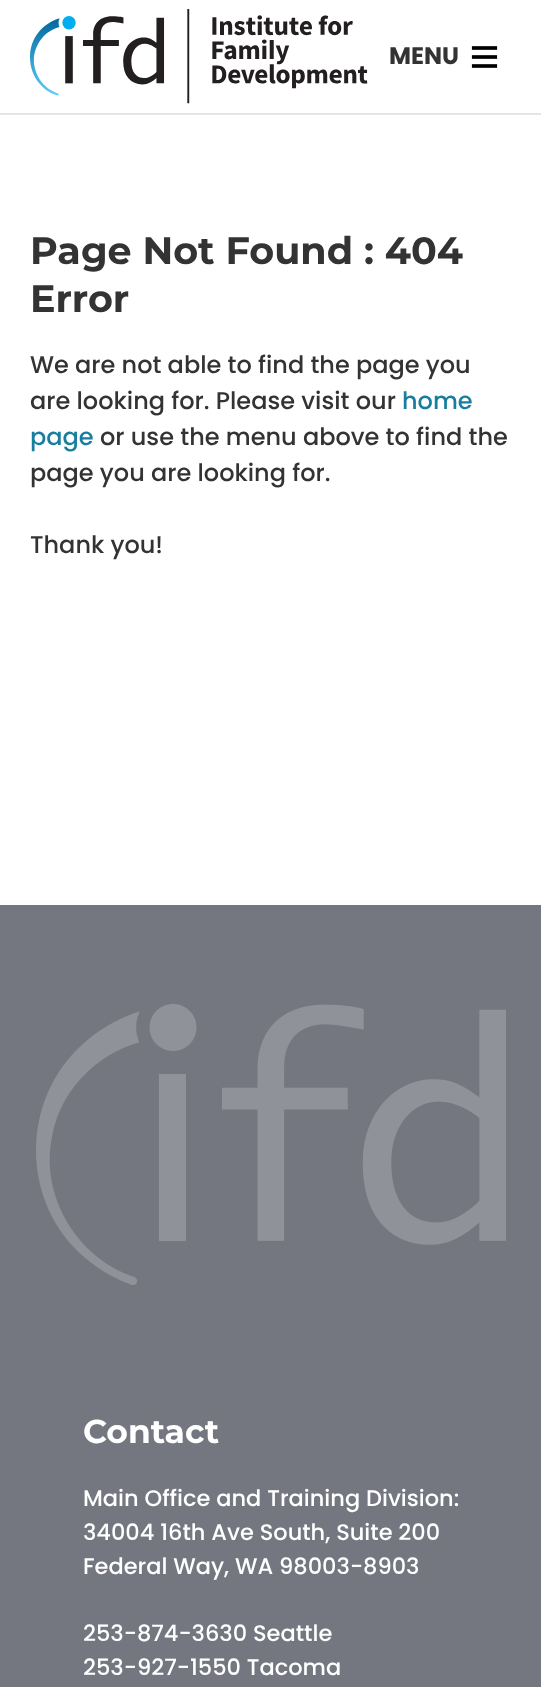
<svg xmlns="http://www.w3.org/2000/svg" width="541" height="1687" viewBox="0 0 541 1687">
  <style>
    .t1 { font: bold 24px Poppins; fill: #333; }
    .t2 { font: bold 38.1px Montserrat; fill: #333; }
    .t3 { font: 500 24px Poppins; fill: #333; }
    .t4 { font: 500 24px Poppins; fill: #187ea0; }
    .t5 { font: bold 33px Montserrat; fill: #fff; }
    .t6 { font: 500 22.5px Poppins; fill: #fff; }
  </style>
  <rect width="100%" height="100%" fill="#fff"/>
  <rect x="0" y="113" width="541" height="2" fill="#e5e5e5"/>
  <image x="30" y="9" width="338" height="95" href="images/1.png"/>
  <text x="389" y="64" class="t1">MENU</text>
  <image x="471" y="46" width="27" height="22" href="images/2.png"/>
  <text x="30" y="264" class="t2">Page Not Found : 404</text>
  <text x="30" y="312" class="t2">Error</text>
  <text x="30" y="373" class="t3">We are not able to find the page you</text>
  <text x="30" y="409" class="t3">are looking for. Please visit our</text>
  <text x="402" y="409" class="t4">home</text>
  <text x="30" y="445" class="t4">page</text>
  <text x="100" y="445" class="t3">or use the menu above to find the</text>
  <text x="30" y="481" class="t3">page you are looking for.</text>
  <text x="30" y="553" class="t3">Thank you!</text>
  <rect x="0" y="905" width="541" height="782" fill="#757780"/>
  <image x="36" y="1004" width="470" height="281" href="images/3.png"/>
  <text x="83" y="1443" class="t5">Contact</text>
  <text x="83" y="1506" class="t6">Main Office and Training Division:</text>
  <text x="83" y="1540" class="t6">34004 16th Ave South, Suite 200</text>
  <text x="83" y="1574" class="t6">Federal Way, WA 98003-8903</text>
  <text x="83" y="1641" class="t6">253-874-3630 Seattle</text>
  <text x="83" y="1675" class="t6">253-927-1550 Tacoma</text>
</svg>
